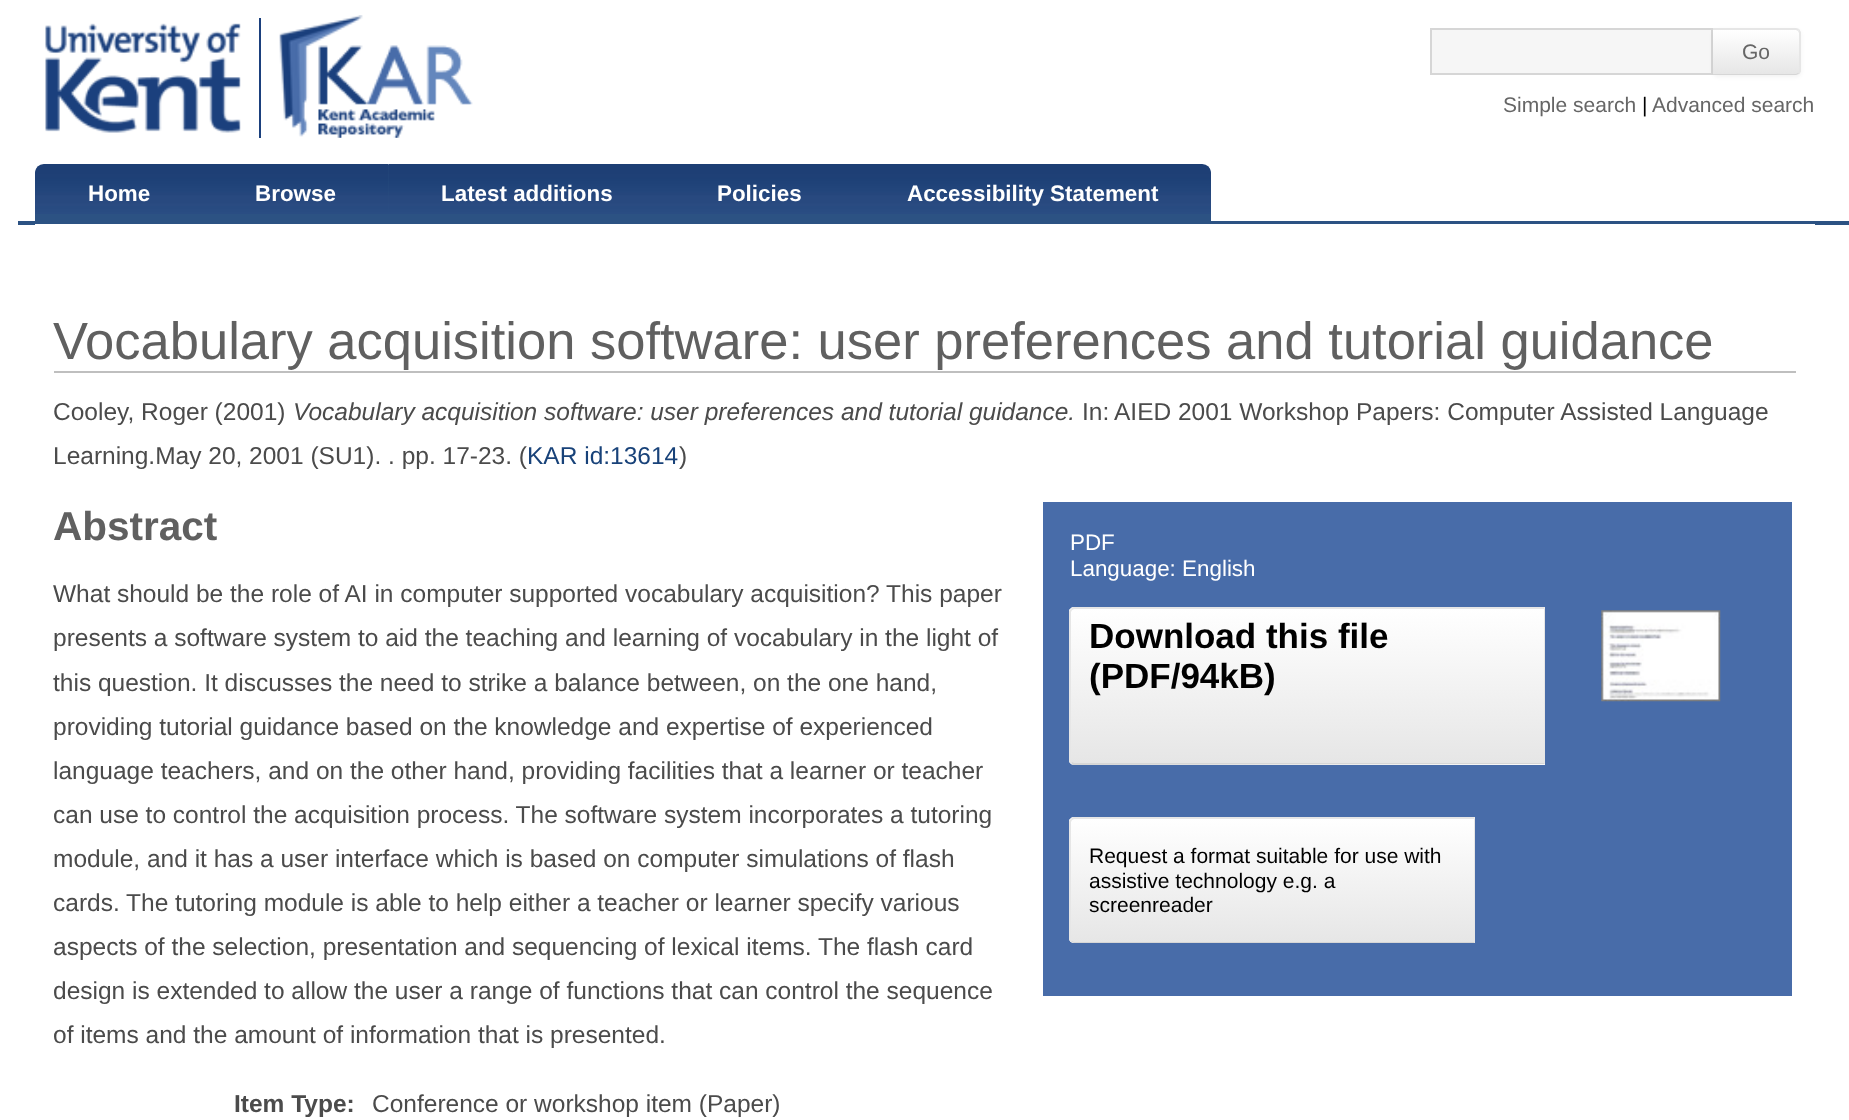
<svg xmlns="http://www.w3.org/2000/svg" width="1849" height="1120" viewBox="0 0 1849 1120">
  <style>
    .t1 { font: 21px Liberation Sans; fill: #666; }
    .t2 { font: 21px Liberation Sans; fill: #000; }
    .t3 { font: bold 22.4px Liberation Sans; fill: #fff; }
    .t4 { font: 52.5px Liberation Sans; fill: #606060; }
    .t5 { font: 24.5px Liberation Sans; fill: #4b4b4b; }
    .t6 { font: italic 24.5px Liberation Sans; fill: #4b4b4b; }
    .t7 { font: 24.5px Liberation Sans; fill: #184279; }
    .t8 { font: bold 40.5px Liberation Sans; fill: #606060; }
    .t9 { font: 22.4px Liberation Sans; fill: #fff; }
    .t10 { font: bold 35px Liberation Sans; fill: #000; }
    .t11 { font: bold 24.5px Liberation Sans; fill: #4b4b4b; }
  </style>
  <defs>
    <clipPath id="clip1"><path d="M1713 28H1796C1799 28 1801 30 1801 33V70C1801 73 1799 75 1796 75H1713Z"/></clipPath>
    <linearGradient id="g1" gradientUnits="userSpaceOnUse" x1="1756" y1="30" x2="1756" y2="74"><stop offset="0" stop-color="#fff"/><stop offset="1" stop-color="#e6e6e6"/></linearGradient>
    <clipPath id="clip2"><path d="M1074 607H1545V765H1074C1071 765 1069 763 1069 760V612C1069 609 1071 607 1074 607Z"/></clipPath>
    <linearGradient id="g2" gradientUnits="userSpaceOnUse" x1="1307" y1="609" x2="1307" y2="763"><stop offset="0" stop-color="#fff"/><stop offset="1" stop-color="#e6e6e6"/></linearGradient>
    <clipPath id="clip3"><path d="M1074 817H1475V943H1074C1071 943 1069 941 1069 938V822C1069 819 1071 817 1074 817Z"/></clipPath>
    <linearGradient id="g3" gradientUnits="userSpaceOnUse" x1="1272" y1="819" x2="1272" y2="942"><stop offset="0" stop-color="#fff"/><stop offset="1" stop-color="#e6e6e6"/></linearGradient>
  </defs>
  <rect width="100%" height="100%" fill="#fff"/>
  <image x="45" y="23" width="196" height="110" href="images/1.png"/>
  <rect x="259" y="18" width="2" height="120" fill="#1b407d"/>
  <image x="279" y="15" width="194" height="123" href="images/2.png"/>
  <rect x="1431" y="29" width="281" height="45" fill="#f6f6f6" stroke="#d6d6d6" stroke-width="2"/>
  <rect x="1713" y="30" width="88" height="47" rx="5" fill="#0000000d" filter="blur(2px)"/>
  <path d="M1713 28H1796C1799 28 1801 30 1801 33V70C1801 73 1799 75 1796 75H1713Z" fill="#f9f9f9"/>
  <g clip-path="url(#clip1)">
    <rect x="1713" y="30" width="88" height="44" fill="url(#g1)"/>
  </g>
  <path d="M1713 28H1796L1799 29L1798 31L1796 30H1713Z" fill="#e6e6e6"/>
  <path d="M1798 73C1800 70 1799 66 1799 64V33L1798 31L1799 29L1801 32V71L1799 74Z" fill="#e6e6e6"/>
  <path d="M1713 74H1796L1798 73L1799 74L1796 75H1713Z" fill="#d6d6d6"/>
  <text x="1742" y="59" class="t1">Go</text>
  <text x="1503" y="112" class="t1">Simple search</text>
  <text x="1642" y="112" class="t2">|</text>
  <text x="1652" y="112" class="t1">Advanced search</text>
  <rect x="18" y="221" width="1831" height="4" fill="#2c5283"/>
  <path d="M44 165H203V221H35V174C35 169 39 165 44 165Z" fill="#2c5283"/>
  <image x="35" y="164" width="168" height="50" href="images/3.png"/>
  <text x="88" y="201" class="t3">Home</text>
  <rect x="203" y="165" width="186" height="56" fill="#2c5283"/>
  <image x="203" y="164" width="186" height="50" href="images/4.png"/>
  <text x="255" y="201" class="t3">Browse</text>
  <rect x="389" y="214" width="465" height="7" fill="#2c5283"/>
  <image x="388" y="164" width="277" height="50" href="images/5.png"/>
  <text x="441" y="201" class="t3">Latest additions</text>
  <image x="665" y="164" width="189" height="50" href="images/6.png"/>
  <text x="717" y="201" class="t3">Policies</text>
  <path d="M854 165H1202C1207 165 1211 169 1211 174V221H854Z" fill="#2c5283"/>
  <image x="854" y="164" width="357" height="50" href="images/7.png"/>
  <text x="907" y="201" class="t3">Accessibility Statement</text>
  <rect x="35" y="224" width="1780" height="1" fill="#fff"/>
  <rect x="54" y="371" width="1742" height="2" fill="#bfbfbf"/>
  <text x="53" y="359" class="t4">Vocabulary acquisition software: user preferences and tutorial guidance</text>
  <text x="53" y="420" class="t5">Cooley, Roger (2001)</text>
  <text x="293" y="420" class="t6">Vocabulary acquisition software: user preferences and tutorial guidance.</text>
  <text x="1082" y="420" class="t5">In:</text>
  <text x="1114" y="420" class="t5">AIED 2001 Workshop Papers: Computer Assisted Language</text>
  <text x="53" y="464" class="t5">Learning.May 20, 2001 (SU1). . pp. 17-23. (</text>
  <text x="527" y="464" class="t7">KAR id:13614</text>
  <text x="679" y="464" class="t5">)</text>
  <text x="53" y="540" class="t8">Abstract</text>
  <text x="53" y="602" class="t5">What should be the role of AI in computer supported vocabulary acquisition? This paper</text>
  <text x="53" y="646" class="t5">presents a software system to aid the teaching and learning of vocabulary in the light of</text>
  <text x="53" y="691" class="t5">this question. It discusses the need to strike a balance between, on the one hand,</text>
  <text x="53" y="735" class="t5">providing tutorial guidance based on the knowledge and expertise of experienced</text>
  <text x="53" y="779" class="t5">language teachers, and on the other hand, providing facilities that a learner or teacher</text>
  <text x="53" y="823" class="t5">can use to control the acquisition process. The software system incorporates a tutoring</text>
  <text x="53" y="867" class="t5">module, and it has a user interface which is based on computer simulations of flash</text>
  <text x="53" y="911" class="t5">cards. The tutoring module is able to help either a teacher or learner specify various</text>
  <text x="53" y="955" class="t5">aspects of the selection, presentation and sequencing of lexical items. The flash card</text>
  <text x="53" y="999" class="t5">design is extended to allow the user a range of functions that can control the sequence</text>
  <text x="53" y="1043" class="t5">of items and the amount of information that is presented.</text>
  <rect x="1043" y="502" width="749" height="494" fill="#486ca9"/>
  <text x="1070" y="550" class="t9">PDF</text>
  <text x="1070" y="576" class="t9">Language: English</text>
  <path d="M1074 607H1545V765H1074C1071 765 1069 763 1069 760V612C1069 609 1071 607 1074 607Z" fill="#f9f9f9"/>
  <g clip-path="url(#clip2)">
    <rect x="1069" y="609" width="475" height="154" fill="url(#g2)"/>
  </g>
  <path d="M1074 609L1072 610L1071 609L1073 607H1545L1544 609Z" fill="#e6e6e6"/>
  <path d="M1545 608V764L1544 763V609Z" fill="#e6e6e6"/>
  <path d="M1073 765L1071 763L1072 762L1074 763H1544L1545 764Z" fill="#d6d6d6"/>
  <path d="M1069 611L1071 609L1072 610L1071 612V760L1072 762L1071 763L1069 761Z" fill="#e6e6e6"/>
  <text x="1089" y="648" class="t10">Download this file</text>
  <text x="1089" y="688" class="t10">(PDF/94kB)</text>
  <image x="1601" y="610" width="120" height="92" href="images/8.png"/>
  <path d="M1074 817H1475V943H1074C1071 943 1069 941 1069 938V822C1069 819 1071 817 1074 817Z" fill="#f9f9f9"/>
  <g clip-path="url(#clip3)">
    <rect x="1069" y="819" width="405" height="123" fill="url(#g3)"/>
  </g>
  <path d="M1074 819L1072 820L1071 819L1073 817H1475L1474 819Z" fill="#e6e6e6"/>
  <path d="M1475 818V943L1474 942V819Z" fill="#e6e6e6"/>
  <path d="M1475 943L1474 942H1074L1072 941L1071 942L1074 943Z" fill="#d6d6d6"/>
  <path d="M1069 821L1071 819L1072 820L1071 822V938L1072 941L1071 942L1069 939Z" fill="#e6e6e6"/>
  <text x="1089" y="863" class="t2">Request a format suitable for use with</text>
  <text x="1089" y="888" class="t2">assistive technology e.g. a</text>
  <text x="1089" y="912" class="t2">screenreader</text>
  <text x="234" y="1112" class="t11">Item Type:</text>
  <text x="372" y="1112" class="t5">Conference or workshop item (Paper)</text>
</svg>
